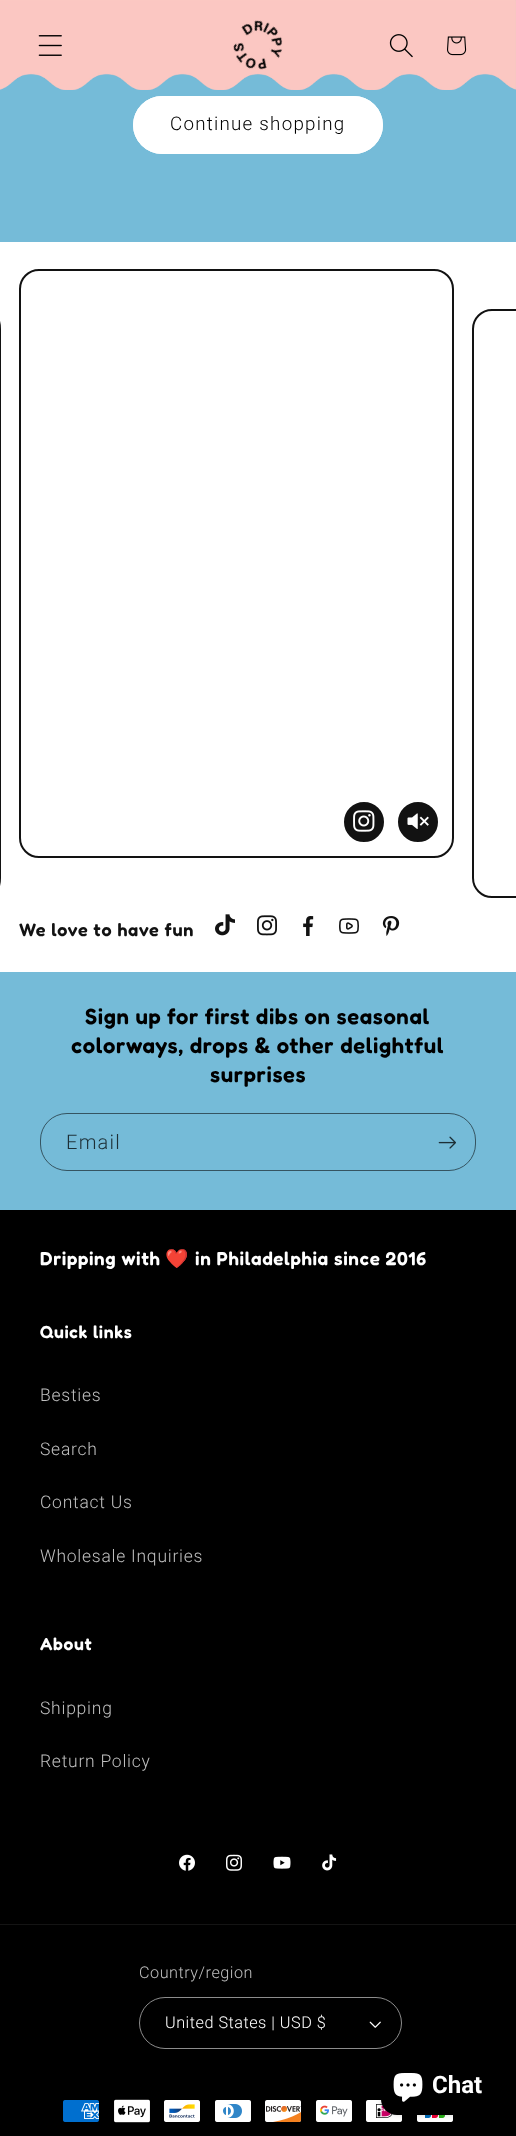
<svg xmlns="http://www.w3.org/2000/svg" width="516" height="2136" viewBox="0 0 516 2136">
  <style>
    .t1 { font: 300 18.75px Roboto; letter-spacing: 1.25px; fill: #000; }
    .t2 { font: 600 18px fredoka; letter-spacing: 0.75px; fill: #121212; }
    .t3 { font: 600 22px fredoka; letter-spacing: 0.65px; fill: #000; }
    .t4 { font: 300 20px Roboto; letter-spacing: 1.25px; fill: #1d2f36; }
    .t5 { font: 600 18.75px fredoka; letter-spacing: 0.65px; fill: #fff; }
    .t6 { font: bold 18.75px Noto Color Emoji; letter-spacing: 0.65px; fill: #fff; }
    .t7 { font: 600 17.5px fredoka; letter-spacing: 0.65px; fill: #fff; }
    .t8 { font: 300 17.5px Roboto; letter-spacing: 0.75px; fill: #bfbfbf; }
    .t9 { font: 300 16.25px Roboto; letter-spacing: 0.5px; fill: #bfbfbf; }
    .t10 { font: 300 16.25px Roboto; letter-spacing: 0.5px; fill: #fff; }
    .t11 { font: bold 24px Roboto; fill: #fff; }
  </style>
  <rect width="100%" height="100%" fill="#75bbd8"/>
  <image x="0" y="0" width="516" height="90" href="images/1.png"/>
  <image x="0" y="0" width="516" height="90" href="images/2.png"/>
  <image x="38" y="35" width="24" height="21" href="images/3.png"/>
  <image x="233" y="20" width="50" height="50" href="images/4.png"/>
  <image x="389" y="34" width="24" height="24" href="images/5.png"/>
  <image x="447" y="36" width="20" height="20" href="images/6.png"/>
  <rect x="133" y="96" width="250" height="58" rx="29" fill="#fff"/>
  <rect x="133.5" y="96.5" width="249" height="57" rx="28.5" fill="none" stroke="#fff"/>
  <text x="170" y="130" class="t1">Continue shopping</text>
  <rect x="0" y="242" width="516" height="730" fill="#fff"/>
  <rect x="-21" y="310" width="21" height="587" rx="19" fill="none" stroke="#121212" stroke-width="2"/>
  <rect x="20" y="270" width="433" height="587" rx="19" fill="none" stroke="#121212" stroke-width="2"/>
  <circle cx="364" cy="822" r="21" fill="#121212" stroke="#fff" stroke-width="2"/>
  <image x="353" y="810" width="22" height="22" href="images/7.png"/>
  <circle cx="418" cy="822" r="21" fill="#121212" stroke="#fff" stroke-width="2"/>
  <image x="407" y="813" width="22" height="16" href="images/8.png"/>
  <rect x="473" y="310" width="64" height="587" rx="19" fill="none" stroke="#121212" stroke-width="2"/>
  <text x="19" y="936" class="t2">We love to have fun</text>
  <image x="215" y="914" width="20" height="22" href="images/9.png"/>
  <image x="257" y="915" width="20" height="21" href="images/10.png"/>
  <image x="303" y="916" width="11" height="20" href="images/11.png"/>
  <image x="339" y="918" width="20" height="16" href="images/12.png"/>
  <image x="382" y="916" width="18" height="20" href="images/13.png"/>
  <rect x="0" y="1210" width="516" height="926" fill="#000"/>
  <text x="85" y="1024" class="t3">Sign up for first dibs on seasonal</text>
  <text x="71" y="1053" class="t3">colorways, drops &amp; other delightful</text>
  <text x="210" y="1082" class="t3">surprises</text>
  <rect x="40.5" y="1113.5" width="435" height="57" rx="26.5" fill="none" stroke="#355461"/>
  <text x="66" y="1149" class="t4">Email</text>
  <image x="438" y="1136" width="18" height="13" href="images/14.png"/>
  <text x="40" y="1265" class="t5">Dripping with</text>
  <text x="165" y="1265" class="t6">❤️</text>
  <text x="195" y="1265" class="t5">in Philadelphia since 2016</text>
  <text x="40" y="1338" class="t7">Quick links</text>
  <text x="40" y="1401" class="t8">Besties</text>
  <text x="40" y="1455" class="t8">Search</text>
  <text x="40" y="1508" class="t8">Contact Us</text>
  <text x="40" y="1562" class="t8">Wholesale Inquiries</text>
  <text x="40" y="1650" class="t7">About</text>
  <text x="40" y="1714" class="t8">Shipping</text>
  <text x="40" y="1767" class="t8">Return Policy</text>
  <image x="179" y="1854" width="16" height="17" href="images/15.png"/>
  <image x="226" y="1854" width="16" height="17" href="images/16.png"/>
  <image x="273" y="1856" width="18" height="13" href="images/17.png"/>
  <image x="322" y="1854" width="15" height="17" href="images/18.png"/>
  <rect x="0" y="1924" width="516" height="1" fill="#141414"/>
  <text x="139" y="1978" class="t9">Country/region</text>
  <image x="369" y="2021" width="12" height="7" href="images/19.png"/>
  <rect x="139.5" y="1997.5" width="262" height="51" rx="25.5" fill="none" stroke="#8c8c8c"/>
  <text x="165" y="2028" class="t10">United States | USD $</text>
  <image x="63" y="2100" width="36" height="22" href="images/20.png"/>
  <image x="114" y="2099" width="36" height="24" href="images/21.png"/>
  <image x="164" y="2100" width="36" height="22" href="images/22.png"/>
  <image x="215" y="2100" width="36" height="22" href="images/23.png"/>
  <image x="265" y="2100" width="37" height="22" href="images/24.png"/>
  <image x="316" y="2100" width="36" height="22" href="images/25.png"/>
  <image x="366" y="2100" width="36" height="22" href="images/26.png"/>
  <image x="417" y="2115" width="36" height="7" href="images/27.png"/>
  <rect x="381" y="2055" width="113" height="60" rx="16" fill="#00000026" filter="blur(2.5px)"/>
  <rect x="381" y="2055" width="113" height="60" rx="16" fill="#000"/>
  <image x="393" y="2073" width="30" height="29" href="images/28.png"/>
  <text x="432" y="2093" class="t11">Chat</text>
</svg>
